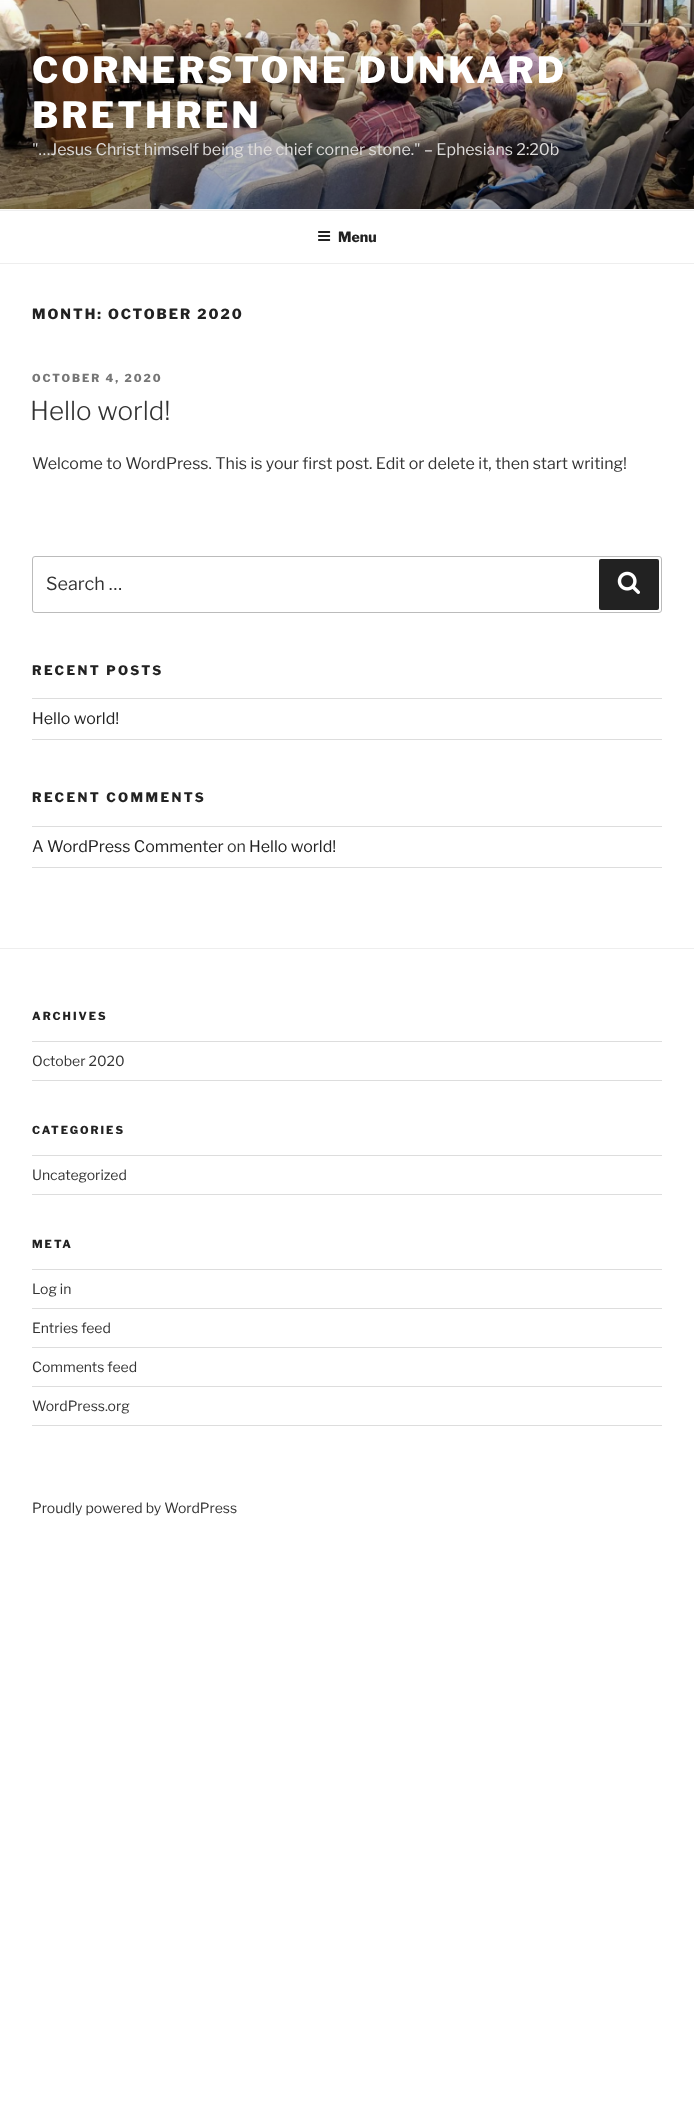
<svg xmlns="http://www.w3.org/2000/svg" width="694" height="2104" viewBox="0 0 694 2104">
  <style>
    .t1 { font: 800 36px Libre Franklin; letter-spacing: 2.9px; fill: #fff; }
    .t2 { font: 100 16px 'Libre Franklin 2'; fill: #dedcdb; }
    .t3 { font: 800 14px Libre Franklin; fill: #222; }
    .t4 { font: 800 14px Libre Franklin; letter-spacing: 2px; fill: #222; }
    .t5 { font: 800 11px Libre Franklin; letter-spacing: 2px; fill: #767676; }
    .t6 { font: 100 26px Libre Franklin; fill: #333; }
    .t7 { font: 100 16px 'Libre Franklin 2'; fill: #333; }
    .t8 { font: 100 18px 'Libre Franklin 2'; fill: #333; }
    .t9 { font: 800 13px Libre Franklin; letter-spacing: 2.4px; fill: #222; }
    .t10 { font: 100 16px 'Libre Franklin 2'; fill: #222; }
    .t11 { font: 800 11px Libre Franklin; letter-spacing: 2px; fill: #222; }
    .t12 { font: 100 14px 'Libre Franklin 2'; fill: #333; }
  </style>
  <rect width="100%" height="100%" fill="#fff"/>
  <rect x="0" y="209" width="694" height="1" fill="#fafafa"/>
  <image x="0" y="0" width="694" height="209" href="images/1.png"/>
  <text x="32" y="83" class="t1">CORNERSTONE DUNKARD</text>
  <text x="32" y="128" class="t1">BRETHREN</text>
  <text x="32" y="155" class="t2">"…Jesus Christ himself being the chief corner stone." – Ephesians 2:20b</text>
  <rect x="0" y="210" width="694" height="1" fill="#eee"/>
  <rect x="0" y="263" width="694" height="1" fill="#eee"/>
  <image x="318" y="231" width="13" height="10" href="images/2.png"/>
  <text x="338" y="242" class="t3">Menu</text>
  <text x="32" y="319" class="t4">MONTH: OCTOBER 2020</text>
  <text x="32" y="382" class="t5">OCTOBER 4, 2020</text>
  <text x="30" y="420" class="t6">Hello world!</text>
  <text x="32" y="469" class="t7">Welcome to WordPress. This is your first post. Edit or delete it, then start writing!</text>
  <rect x="32.5" y="556.5" width="629" height="56" rx="2.5" fill="none" stroke="#bbb"/>
  <text x="46" y="590" class="t8">Search …</text>
  <rect x="599" y="559" width="60" height="51" rx="2" fill="#222"/>
  <image x="617" y="571" width="23" height="23" href="images/3.png"/>
  <text x="32" y="675" class="t9">RECENT POSTS</text>
  <rect x="32" y="698" width="630" height="1" fill="#ddd"/>
  <rect x="32" y="739" width="630" height="1" fill="#ddd"/>
  <text x="32" y="724" class="t10">Hello world!</text>
  <text x="32" y="802" class="t9">RECENT COMMENTS</text>
  <rect x="32" y="826" width="630" height="1" fill="#ddd"/>
  <rect x="32" y="867" width="630" height="1" fill="#ddd"/>
  <text x="32" y="852" class="t10">A WordPress Commenter</text>
  <text x="227" y="852" class="t7">on</text>
  <text x="249" y="852" class="t10">Hello world!</text>
  <rect x="0" y="948" width="694" height="1" fill="#eee"/>
  <text x="32" y="1020" class="t11">ARCHIVES</text>
  <rect x="32" y="1041" width="630" height="1" fill="#ddd"/>
  <rect x="32" y="1080" width="630" height="1" fill="#ddd"/>
  <text x="32" y="1066" class="t12">October 2020</text>
  <text x="32" y="1134" class="t11">CATEGORIES</text>
  <rect x="32" y="1155" width="630" height="1" fill="#ddd"/>
  <rect x="32" y="1194" width="630" height="1" fill="#ddd"/>
  <text x="32" y="1180" class="t12">Uncategorized</text>
  <text x="32" y="1248" class="t11">META</text>
  <rect x="32" y="1269" width="630" height="1" fill="#ddd"/>
  <rect x="32" y="1308" width="630" height="1" fill="#ddd"/>
  <text x="32" y="1294" class="t12">Log in</text>
  <rect x="32" y="1347" width="630" height="1" fill="#ddd"/>
  <text x="32" y="1333" class="t12">Entries feed</text>
  <rect x="32" y="1386" width="630" height="1" fill="#ddd"/>
  <text x="32" y="1372" class="t12">Comments feed</text>
  <rect x="32" y="1425" width="630" height="1" fill="#ddd"/>
  <text x="32" y="1411" class="t12">WordPress.org</text>
  <text x="32" y="1513" class="t12">Proudly powered by WordPress</text>
</svg>
